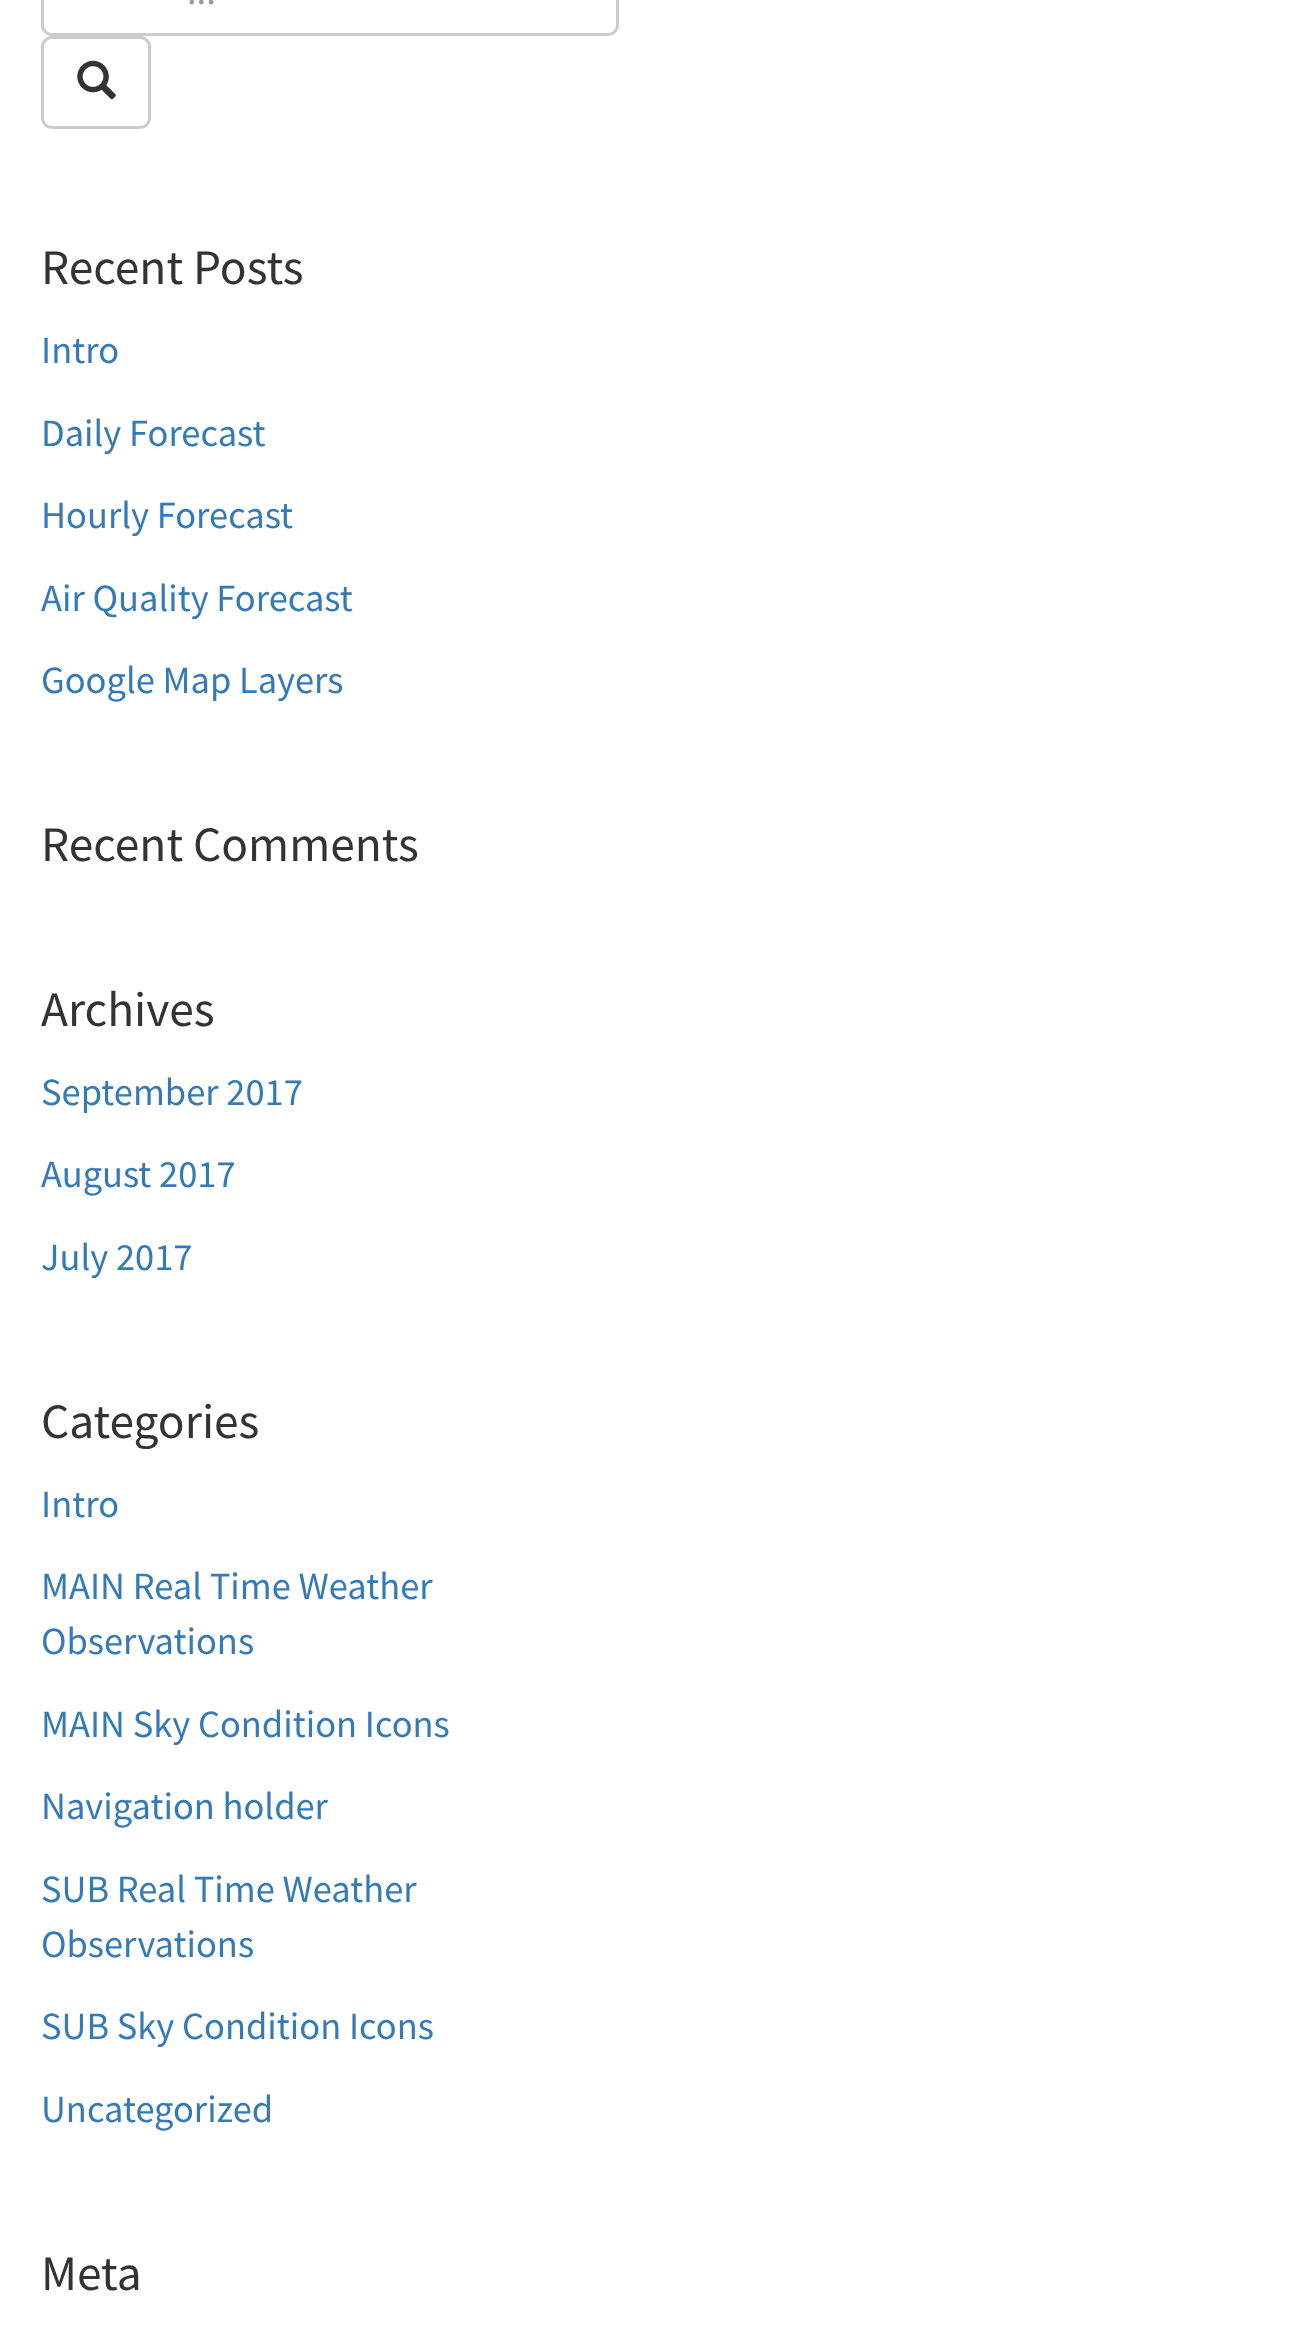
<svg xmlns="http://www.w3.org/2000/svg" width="1315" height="2332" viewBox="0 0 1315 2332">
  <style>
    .t1 { font: 38.5px Source Sans Pro; fill: #999; }
    .t2 { font: 49.5px Source Sans Pro; fill: #333; }
    .t3 { font: 38.5px Source Sans Pro; fill: #337ab7; }
  </style>
  <rect width="100%" height="100%" fill="#fff"/>
  <rect x="42.5" y="-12.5" width="575" height="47" rx="9.5" fill="none" stroke="#ccc" stroke-width="3"/>
  <text x="187" y="4" class="t1">...</text>
  <rect x="42.5" y="37.5" width="107" height="90" rx="9.5" fill="none" stroke="#ccc" stroke-width="3"/>
  <image x="77" y="60" width="39" height="40" href="images/1.png"/>
  <text x="41" y="284" class="t2">Recent Posts</text>
  <text x="41" y="363" class="t3">Intro</text>
  <text x="41" y="446" class="t3">Daily Forecast</text>
  <text x="41" y="528" class="t3">Hourly Forecast</text>
  <text x="41" y="611" class="t3">Air Quality Forecast</text>
  <text x="41" y="693" class="t3">Google Map Layers</text>
  <text x="41" y="861" class="t2">Recent Comments</text>
  <text x="41" y="1026" class="t2">Archives</text>
  <text x="41" y="1105" class="t3">September 2017</text>
  <text x="41" y="1187" class="t3">August 2017</text>
  <text x="41" y="1270" class="t3">July 2017</text>
  <text x="41" y="1438" class="t2">Categories</text>
  <text x="41" y="1517" class="t3">Intro</text>
  <text x="41" y="1599" class="t3">MAIN Real Time Weather</text>
  <text x="41" y="1654" class="t3">Observations</text>
  <text x="41" y="1737" class="t3">MAIN Sky Condition Icons</text>
  <text x="41" y="1819" class="t3">Navigation holder</text>
  <text x="41" y="1902" class="t3">SUB Real Time Weather</text>
  <text x="41" y="1957" class="t3">Observations</text>
  <text x="41" y="2039" class="t3">SUB Sky Condition Icons</text>
  <text x="41" y="2122" class="t3">Uncategorized</text>
  <text x="41" y="2290" class="t2">Meta</text>
</svg>
